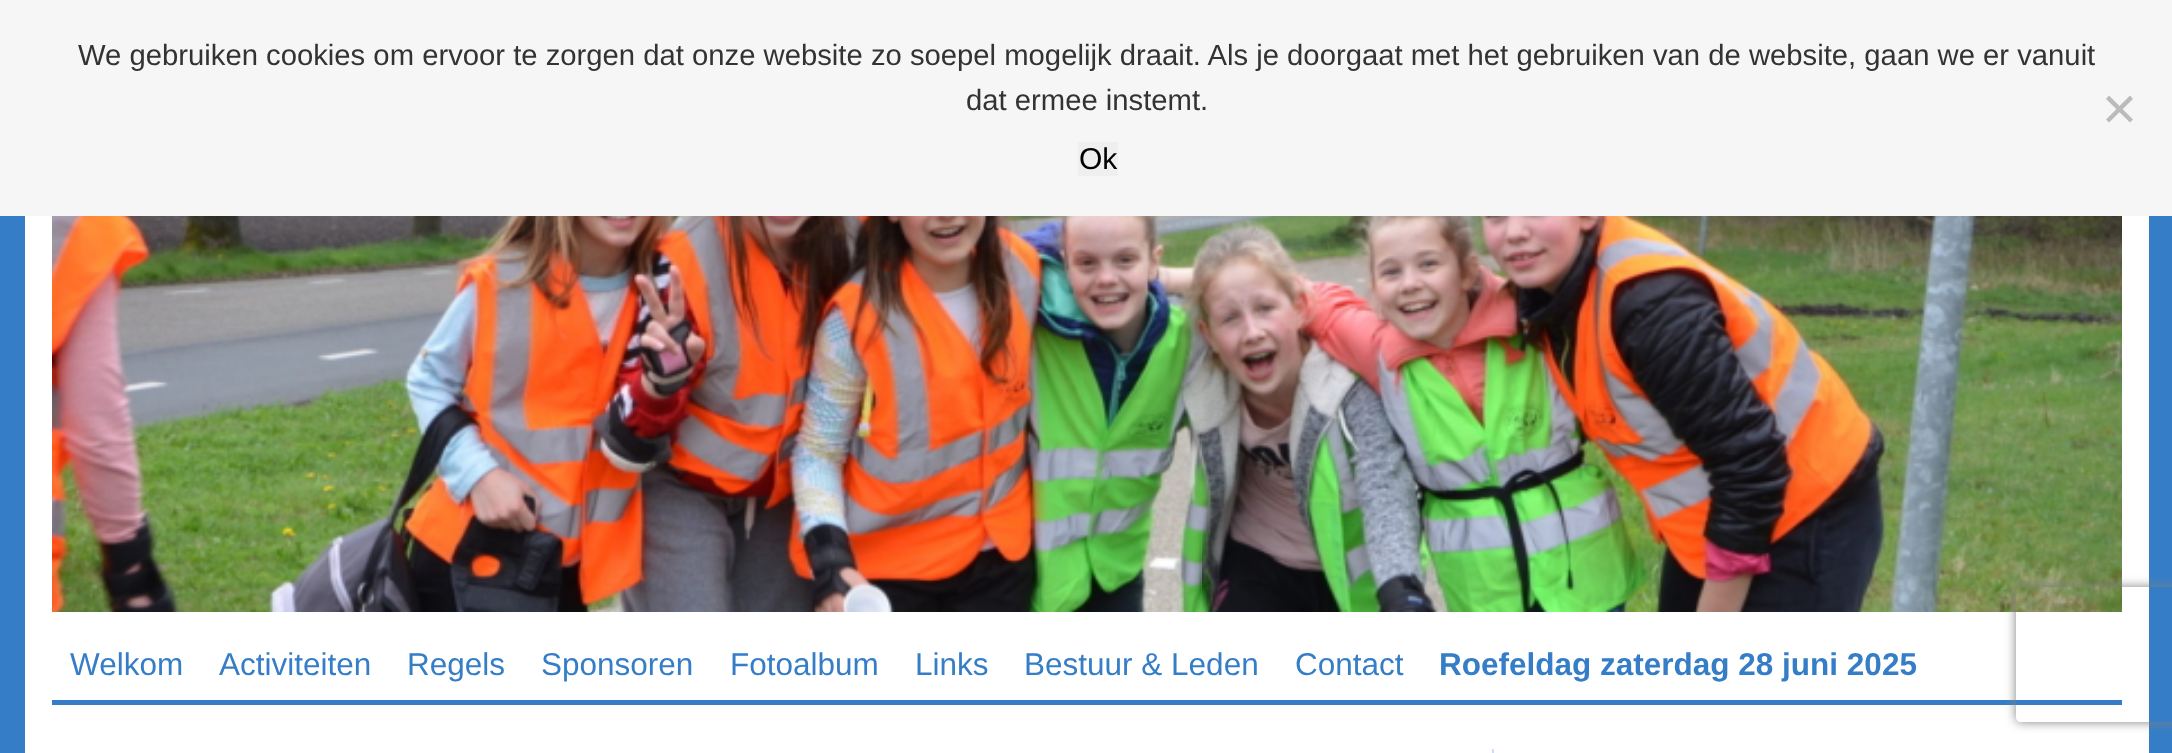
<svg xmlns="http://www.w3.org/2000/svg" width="2172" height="753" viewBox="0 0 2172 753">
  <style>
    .t1 { font: 29.25px Liberation Sans; fill: #333; }
    .t2 { font: 30px Liberation Sans; fill: #000; }
    .t3 { font: 31.5px Liberation Sans; fill: #357ec7; }
    .t4 { font: bold 31.5px Liberation Sans; fill: #357ec7; }
  </style>
  <defs>
    <clipPath id="clip1"><path d="M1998 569H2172V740H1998ZM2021 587H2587C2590 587 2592 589 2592 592V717C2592 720 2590 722 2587 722H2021C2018 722 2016 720 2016 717V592C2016 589 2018 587 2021 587Z" clip-rule="evenodd"/></clipPath>
  </defs>
  <rect width="100%" height="100%" fill="#357ec7"/>
  <rect x="0" y="0" width="2172" height="216" fill="#f6f6f6"/>
  <text x="78" y="65" class="t1">We gebruiken cookies om ervoor te zorgen dat onze website zo soepel mogelijk draait. Als je doorgaat met het gebruiken van de website, gaan we er vanuit</text>
  <text x="966" y="110" class="t1">dat ermee instemt.</text>
  <path d="M2130 95.5L2133 99L2109 122.5L2106 119.5Z" fill="#bbb"/>
  <path d="M2106 99L2109 95.5L2133 119.5L2130 122.5Z" fill="#bbb"/>
  <rect x="1078" y="142" width="40" height="34" fill="#efefef"/>
  <text x="1079" y="169" class="t2">Ok</text>
  <rect x="25" y="216" width="2124" height="537" fill="#fff"/>
  <image x="52" y="216" width="2070" height="396" href="images/1.png"/>
  <rect x="52" y="700" width="2070" height="5" fill="#357ec7"/>
  <text x="70" y="675" class="t3">Welkom</text>
  <text x="219" y="675" class="t3">Activiteiten</text>
  <text x="407" y="675" class="t3">Regels</text>
  <text x="541" y="675" class="t3">Sponsoren</text>
  <text x="730" y="675" class="t3">Fotoalbum</text>
  <text x="915" y="675" class="t3">Links</text>
  <text x="1024" y="675" class="t3">Bestuur &amp; Leden</text>
  <text x="1295" y="675" class="t3">Contact</text>
  <text x="1439" y="675" class="t4">Roefeldag zaterdag 28 juni 2025</text>
  <rect x="1492" y="749" width="2" height="4" fill="#c6deff"/>
  <g clip-path="url(#clip1)">
    <rect x="2016" y="587" width="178" height="135" rx="5" fill="#808080" filter="blur(5.5px)"/>
  </g>
</svg>
